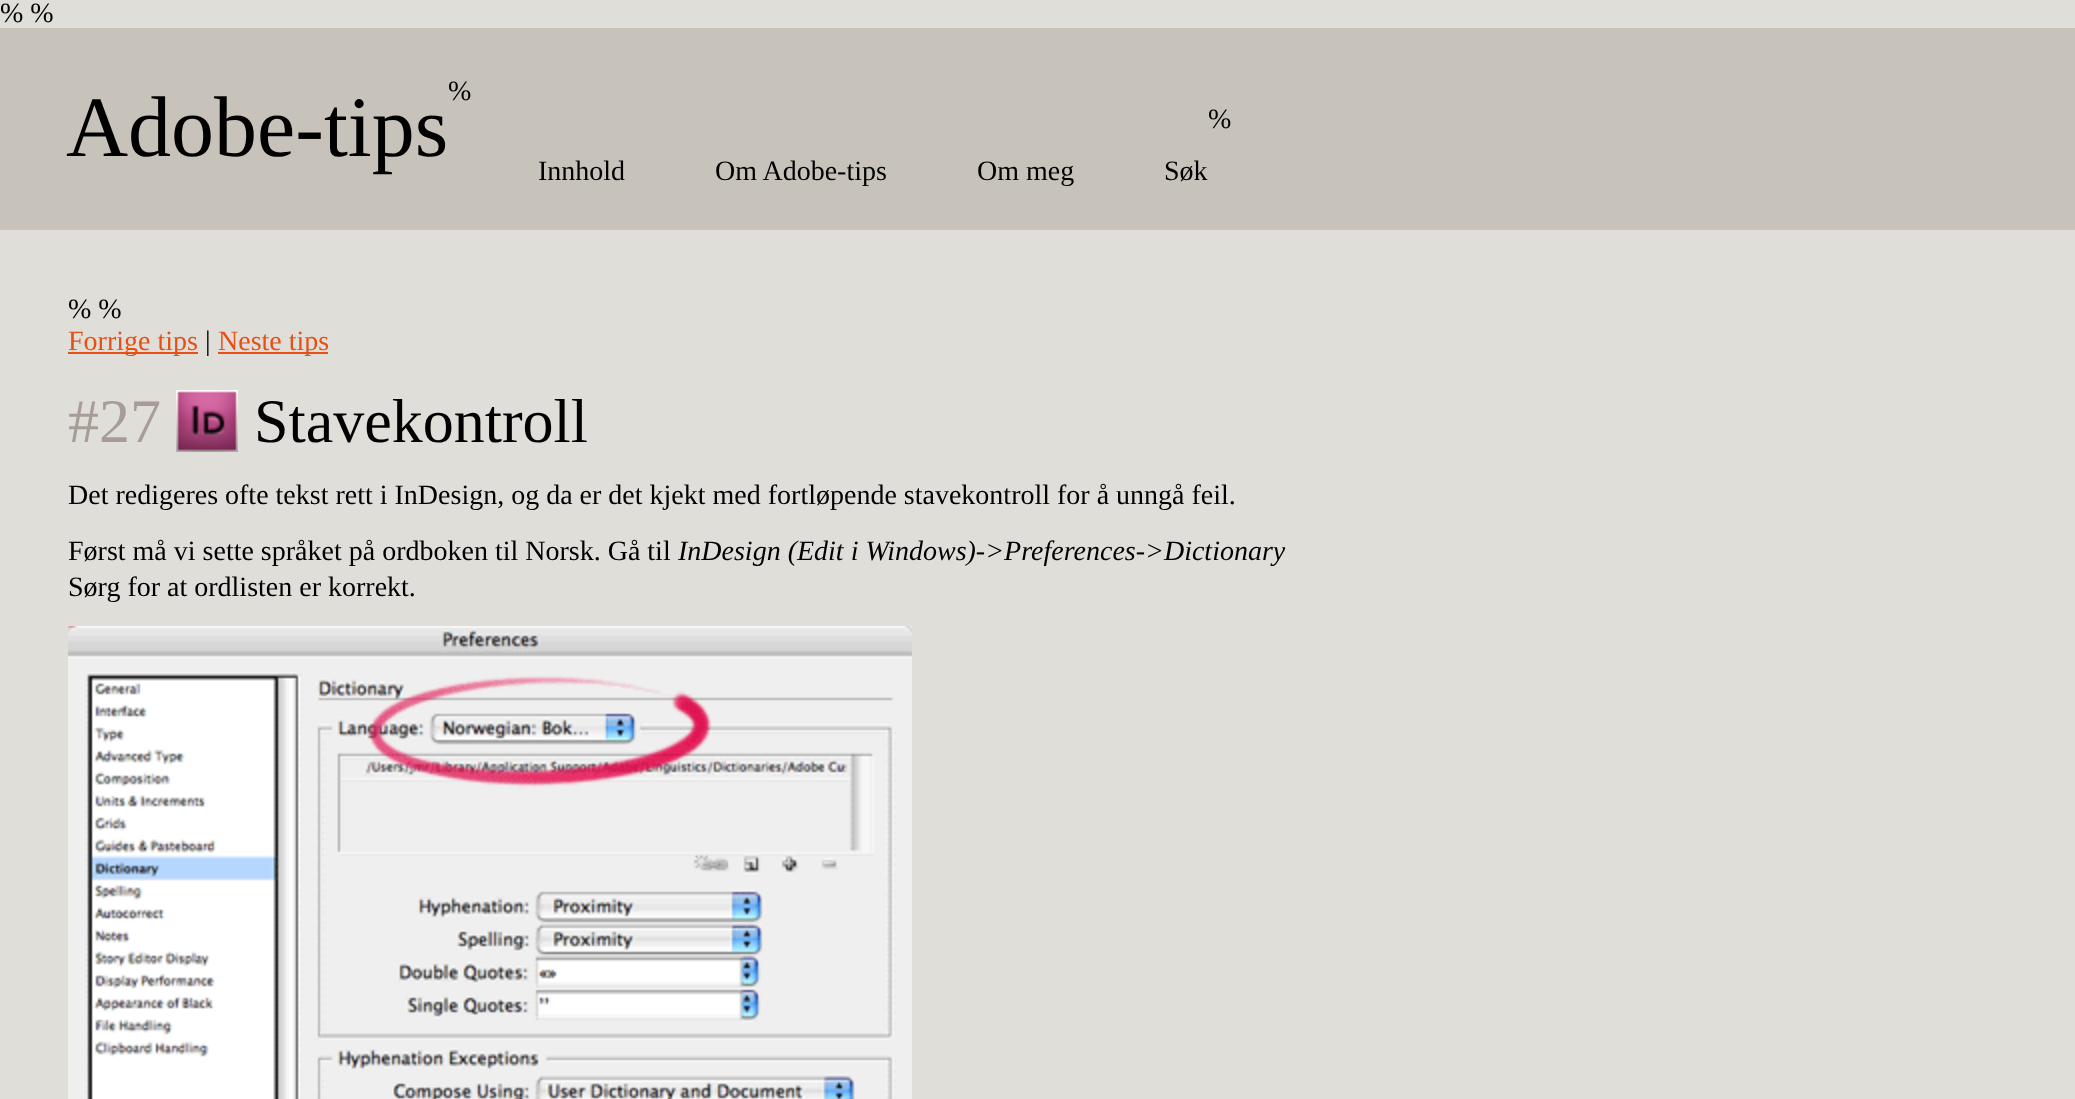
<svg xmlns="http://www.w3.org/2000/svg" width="2075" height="1099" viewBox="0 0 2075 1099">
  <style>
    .t1 { font: 28px Liberation Serif; fill: #000; }
    .t2 { font: 86px Liberation Serif; fill: #000; }
    .t3 { font: 28px Liberation Serif; fill: #e75014; }
    .t4 { font: 62px Liberation Serif; fill: #a79d96; }
    .t5 { font: 62px Liberation Serif; fill: #000; }
    .t6 { font: italic 28px Liberation Serif; fill: #000; }
  </style>
  <rect width="100%" height="100%" fill="#e0ded8"/>
  <text x="0" y="22" class="t1">% %</text>
  <rect x="0" y="28" width="2075" height="202" fill="#c7c3ba"/>
  <text x="448" y="100" class="t1">%</text>
  <text x="66" y="156" class="t2">Adobe-tips</text>
  <text x="1208" y="128" class="t1">%</text>
  <text x="538" y="180" class="t1">Innhold</text>
  <text x="715" y="180" class="t1">Om Adobe-tips</text>
  <text x="977" y="180" class="t1">Om meg</text>
  <text x="1164" y="180" class="t1">Søk</text>
  <text x="68" y="318" class="t1">% %</text>
  <rect x="68" y="352" width="130" height="2" fill="#e75014"/>
  <text x="68" y="350" class="t3">Forrige tips</text>
  <text x="205" y="350" class="t1">|</text>
  <rect x="218" y="352" width="110" height="2" fill="#e75014"/>
  <text x="218" y="350" class="t3">Neste tips</text>
  <text x="68" y="442" class="t4">#27</text>
  <image x="176" y="390" width="62" height="62" href="images/1.png"/>
  <text x="254" y="442" class="t5">Stavekontroll</text>
  <text x="68" y="504" class="t1">Det redigeres ofte tekst rett i InDesign, og da er det kjekt med fortløpende stavekontroll for å unngå feil.</text>
  <text x="68" y="560" class="t1">Først må vi sette språket på ordboken til Norsk. Gå til</text>
  <text x="678" y="560" class="t6">InDesign (Edit i Windows)-&gt;Preferences-&gt;Dictionary</text>
  <text x="68" y="596" class="t1">Sørg for at ordlisten er korrekt.</text>
  <image x="68" y="626" width="844" height="473" href="images/2.png"/>
</svg>
